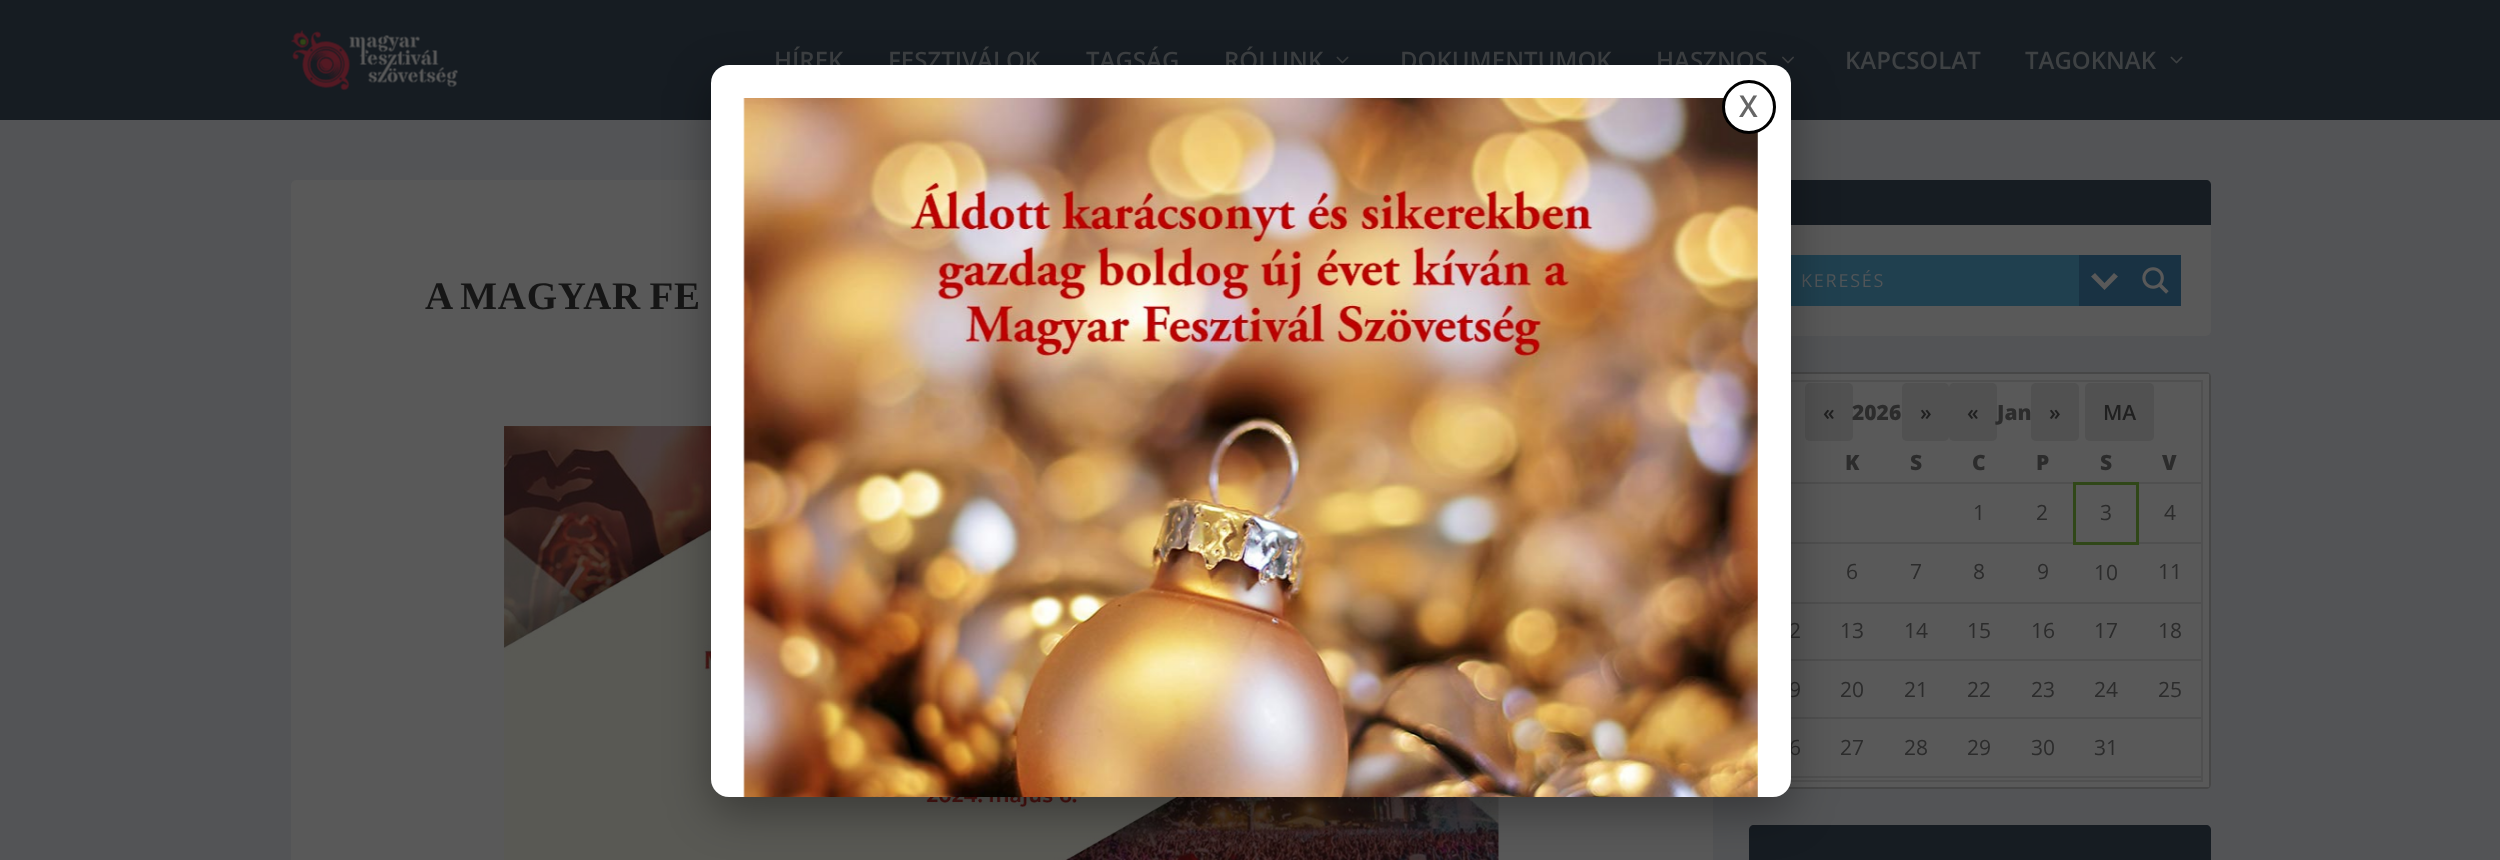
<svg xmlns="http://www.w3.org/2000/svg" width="2500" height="860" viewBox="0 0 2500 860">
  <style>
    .t1 { font: 600 24px Open Sans; fill: #3e4143; }
    .t2 { font: bold 39px Liberation Serif; letter-spacing: 0.75px; fill: #161616; }
    .t3 { font: 18px Open Sans; letter-spacing: 1.75px; fill: #515558; }
    .t4 { font: 600 21px Open Sans; fill: #202020; }
    .t5 { font: 800 21px Open Sans; fill: #2c2c2c; }
    .t6 { font: 21px Open Sans; fill: #2c2c2c; }
    .t7 { font: 600 30px Open Sans; fill: #666; }
  </style>
  <rect width="100%" height="100%" fill="#535456"/>
  <rect x="0" y="0" width="2500" height="120" fill="#161c22"/>
  <image x="291" y="30" width="167" height="61" href="images/1.png"/>
  <text x="774" y="69" class="t1">HÍREK</text>
  <text x="888" y="69" class="t1">FESZTIVÁLOK</text>
  <text x="1086" y="69" class="t1">TAGSÁG</text>
  <text x="1224" y="69" class="t1">RÓLUNK</text>
  <image x="1336" y="56" width="13" height="8" href="images/2.png"/>
  <text x="1400" y="69" class="t1">DOKUMENTUMOK</text>
  <text x="1656" y="69" class="t1">HASZNOS</text>
  <image x="1782" y="56" width="12" height="8" href="images/3.png"/>
  <text x="1845" y="69" class="t1">KAPCSOLAT</text>
  <text x="2025" y="69" class="t1">TAGOKNAK</text>
  <image x="2170" y="56" width="13" height="8" href="images/2.png"/>
  <rect x="291" y="180" width="1422" height="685" rx="5" fill="#595959"/>
  <text x="425" y="309" word-spacing="-2" class="t2">A MAGYAR FE</text>
  <image x="504" y="426" width="995" height="434" href="images/4.png"/>
  <rect x="1749" y="180" width="462" height="156" rx="5" fill="#595959"/>
  <path d="M1754 180H2206C2209 180 2211 182 2211 185V225H1749V185C1749 182 1751 180 1754 180Z" fill="#161c22"/>
  <rect x="1791" y="255" width="288" height="51" fill="#20404f"/>
  <rect x="2079" y="255" width="102" height="51" fill="#193243"/>
  <path d="M2114 273L2118 276.5L2104.5 290L2091 276.5L2095 273L2104.5 283Z" fill="#595959"/>
  <text x="1801" y="287" class="t3">KERESÉS</text>
  <image x="2142" y="267" width="27" height="27" href="images/5.png"/>
  <rect x="1749" y="372" width="462" height="417" rx="5" fill="#595959"/>
  <path d="M1754 372C1751 372 1749 374 1749 377V784C1749 787 1751 789 1754 789H2206C2209 789 2211 787 2211 784V377C2211 374 2209 372 2206 372ZM1751 374V787H2209V374Z" fill="#474747" fill-rule="evenodd"/>
  <rect x="1791" y="380" width="411" height="2" fill="#505050"/>
  <rect x="2201" y="380" width="2" height="402" fill="#505050"/>
  <rect x="1790" y="780" width="412" height="2" fill="#505050"/>
  <rect x="1805" y="383" width="48" height="58" rx="5" fill="#515151"/>
  <text x="1823" y="420" class="t4">«</text>
  <text x="1852" y="420" class="t5">2026</text>
  <rect x="1902" y="383" width="47" height="58" rx="5" fill="#515151"/>
  <text x="1920" y="420" class="t4">»</text>
  <rect x="1949" y="383" width="48" height="58" rx="5" fill="#515151"/>
  <text x="1967" y="420" class="t4">«</text>
  <text x="1997" y="420" class="t5">Jan</text>
  <rect x="2031" y="383" width="48" height="58" rx="5" fill="#515151"/>
  <text x="2049" y="420" class="t4">»</text>
  <rect x="2085" y="383" width="69" height="58" rx="5" fill="#515151"/>
  <text x="2103" y="420" class="t4">MA</text>
  <text x="1845" y="470" class="t5">K</text>
  <text x="1910" y="470" class="t5">S</text>
  <text x="1972" y="470" class="t5">C</text>
  <text x="2036" y="470" class="t5">P</text>
  <text x="2100" y="470" class="t5">S</text>
  <text x="2162" y="470" class="t5">V</text>
  <text x="1973" y="520" class="t6">1</text>
  <rect x="1791" y="482" width="285" height="2" fill="#505050"/>
  <text x="2036" y="520" class="t6">2</text>
  <rect x="2138" y="482" width="64" height="2" fill="#505050"/>
  <rect x="2073" y="482" width="66" height="3" fill="#304718"/>
  <rect x="2138" y="542" width="64" height="2" fill="#505050"/>
  <rect x="2136" y="482" width="3" height="63" fill="#304718"/>
  <rect x="1791" y="542" width="285" height="2" fill="#505050"/>
  <rect x="2073" y="542" width="66" height="3" fill="#304718"/>
  <rect x="2073" y="482" width="3" height="63" fill="#304718"/>
  <text x="2100" y="520" class="t6">3</text>
  <text x="2164" y="520" class="t6">4</text>
  <text x="1846" y="579" class="t6">6</text>
  <text x="1910" y="579" class="t6">7</text>
  <text x="1973" y="579" class="t6">8</text>
  <text x="2037" y="579" class="t6">9</text>
  <text x="2094" y="580" class="t6">10</text>
  <text x="2158" y="579" class="t6">11</text>
  <text x="1789" y="638" class="t6">2</text>
  <text x="1840" y="638" class="t6">13</text>
  <text x="1904" y="638" class="t6">14</text>
  <text x="1967" y="638" class="t6">15</text>
  <text x="2031" y="638" class="t6">16</text>
  <text x="2094" y="638" class="t6">17</text>
  <rect x="1791" y="602" width="411" height="2" fill="#505050"/>
  <text x="2158" y="638" class="t6">18</text>
  <text x="1789" y="697" class="t6">9</text>
  <text x="1840" y="697" class="t6">20</text>
  <text x="1904" y="697" class="t6">21</text>
  <text x="1967" y="697" class="t6">22</text>
  <text x="2031" y="697" class="t6">23</text>
  <text x="2094" y="697" class="t6">24</text>
  <rect x="1791" y="659" width="411" height="2" fill="#505050"/>
  <text x="2158" y="697" class="t6">25</text>
  <rect x="1791" y="717" width="411" height="2" fill="#505050"/>
  <text x="1789" y="755" class="t6">6</text>
  <text x="1840" y="755" class="t6">27</text>
  <text x="1904" y="755" class="t6">28</text>
  <text x="1967" y="755" class="t6">29</text>
  <text x="2031" y="755" class="t6">30</text>
  <text x="2094" y="755" class="t6">31</text>
  <rect x="1791" y="776" width="411" height="2" fill="#505050"/>
  <path d="M1754 825H2206C2209 825 2211 827 2211 830V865H1749V830C1749 827 1751 825 1754 825Z" fill="#161c22"/>
  <rect x="711" y="80" width="1080" height="732" rx="18" fill="#00000059" filter="blur(22.5px)"/>
  <rect x="711" y="65" width="1080" height="732" rx="18" fill="#fff"/>
  <image x="743" y="98" width="1015" height="699" href="images/6.png"/>
  <circle cx="1749" cy="107" r="25.5" fill="#fff" stroke="#000" stroke-width="3"/>
  <text x="1739" y="117" class="t7">X</text>
</svg>
